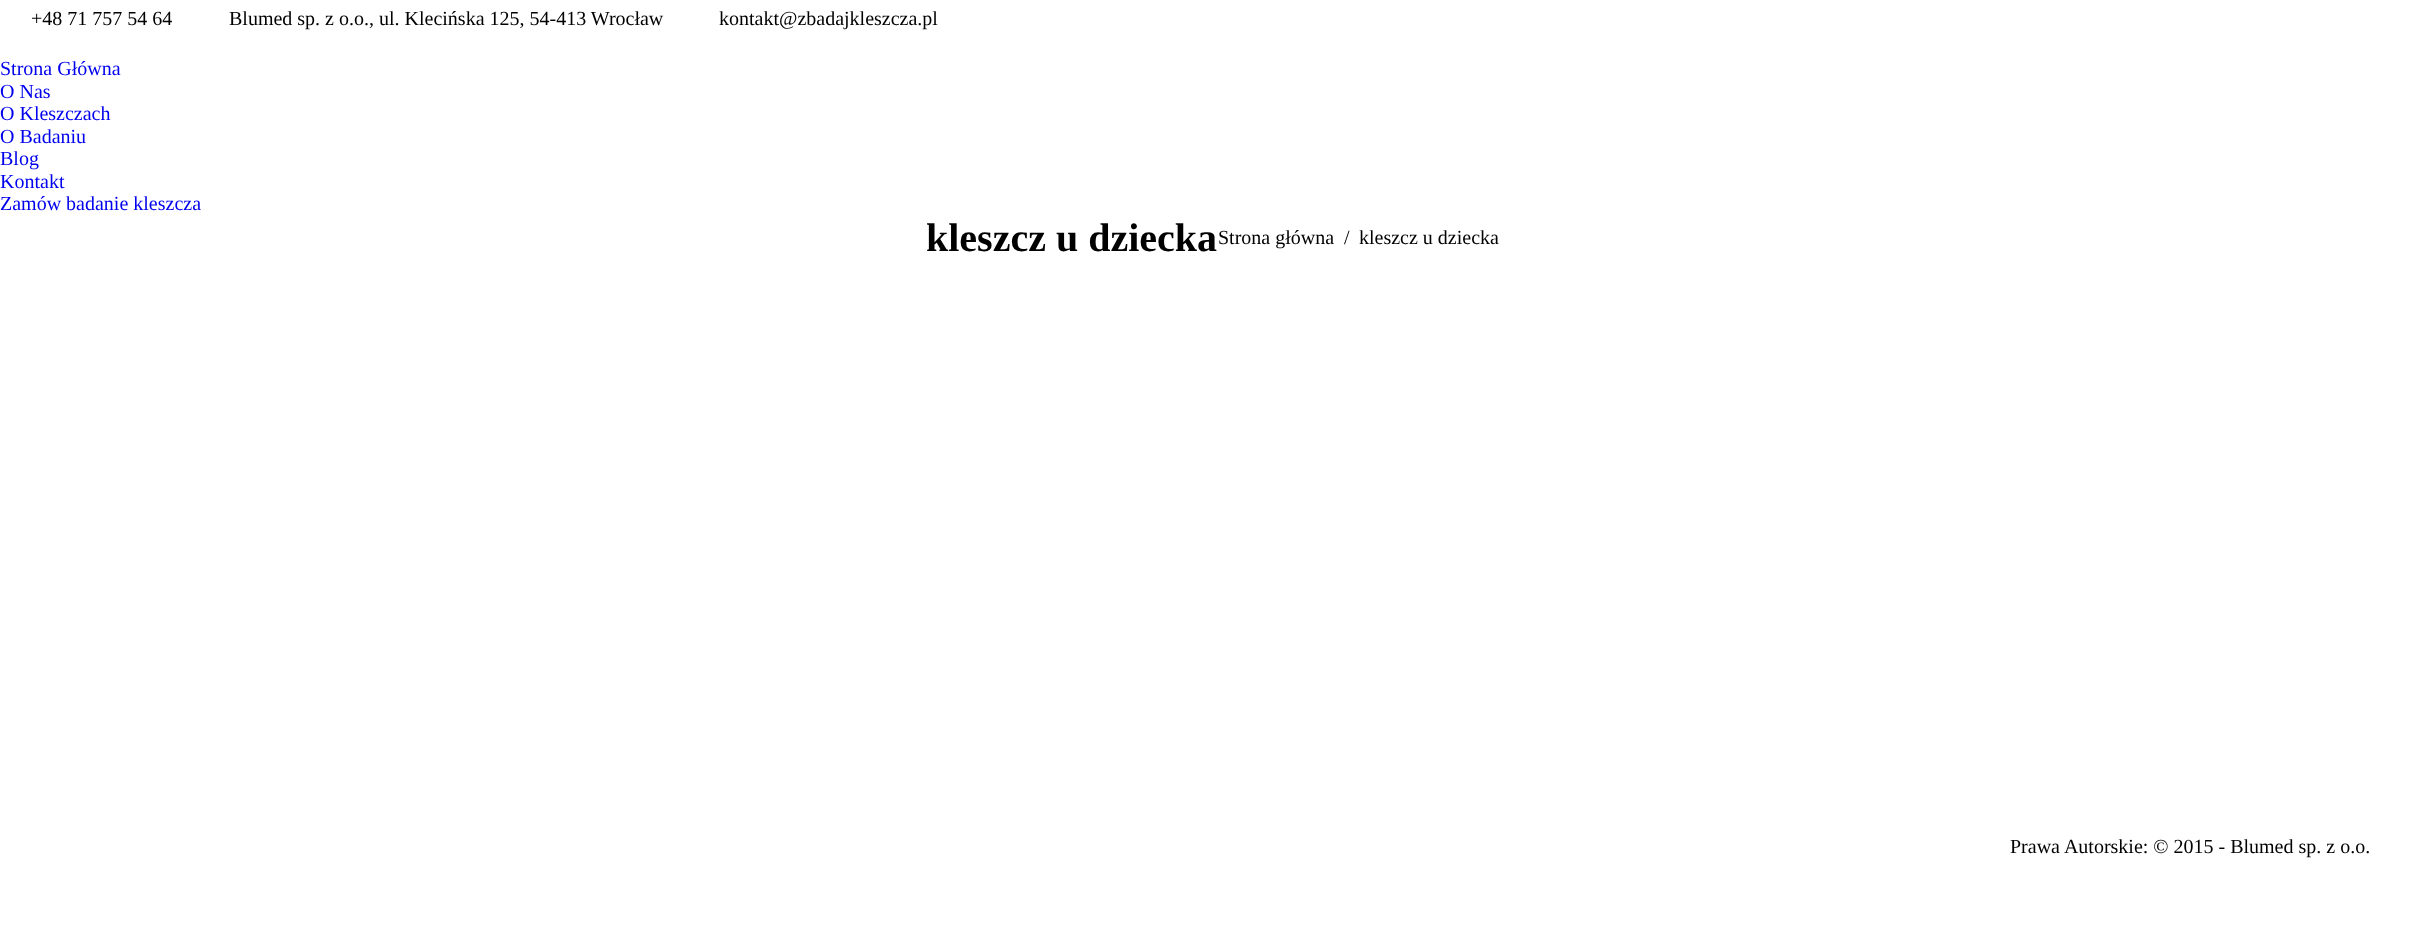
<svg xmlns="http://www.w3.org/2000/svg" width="2425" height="931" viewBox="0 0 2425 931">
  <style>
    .t1 { font: 20px Liberation Serif; fill: #000; }
    .t2 { font: 20px Liberation Serif; fill: #00e; }
    .t3 { font: bold 40px Liberation Serif; fill: #000; }
  </style>
  <rect width="100%" height="100%" fill="#fff"/>
  <text x="31" y="25" class="t1">+48 71 757 54 64</text>
  <text x="229" y="25" class="t1">Blumed sp. z o.o., ul. Klecińska 125, 54-413 Wrocław</text>
  <text x="719" y="25" class="t1">kontakt@zbadajkleszcza.pl</text>
  <text x="0" y="75" class="t2">Strona Główna</text>
  <text x="0" y="98" class="t2">O Nas</text>
  <text x="0" y="120" class="t2">O Kleszczach</text>
  <text x="0" y="143" class="t2">O Badaniu</text>
  <text x="0" y="165" class="t2">Blog</text>
  <text x="0" y="188" class="t2">Kontakt</text>
  <text x="0" y="210" class="t2">Zamów badanie kleszcza</text>
  <text x="926" y="251" class="t3">kleszcz u dziecka</text>
  <text x="1218" y="244" class="t1">Strona główna</text>
  <text x="1344" y="244" class="t1">/</text>
  <text x="1359" y="244" class="t1">kleszcz u dziecka</text>
  <text x="2010" y="853" class="t1">Prawa Autorskie: © 2015 - Blumed sp. z o.o.</text>
</svg>
